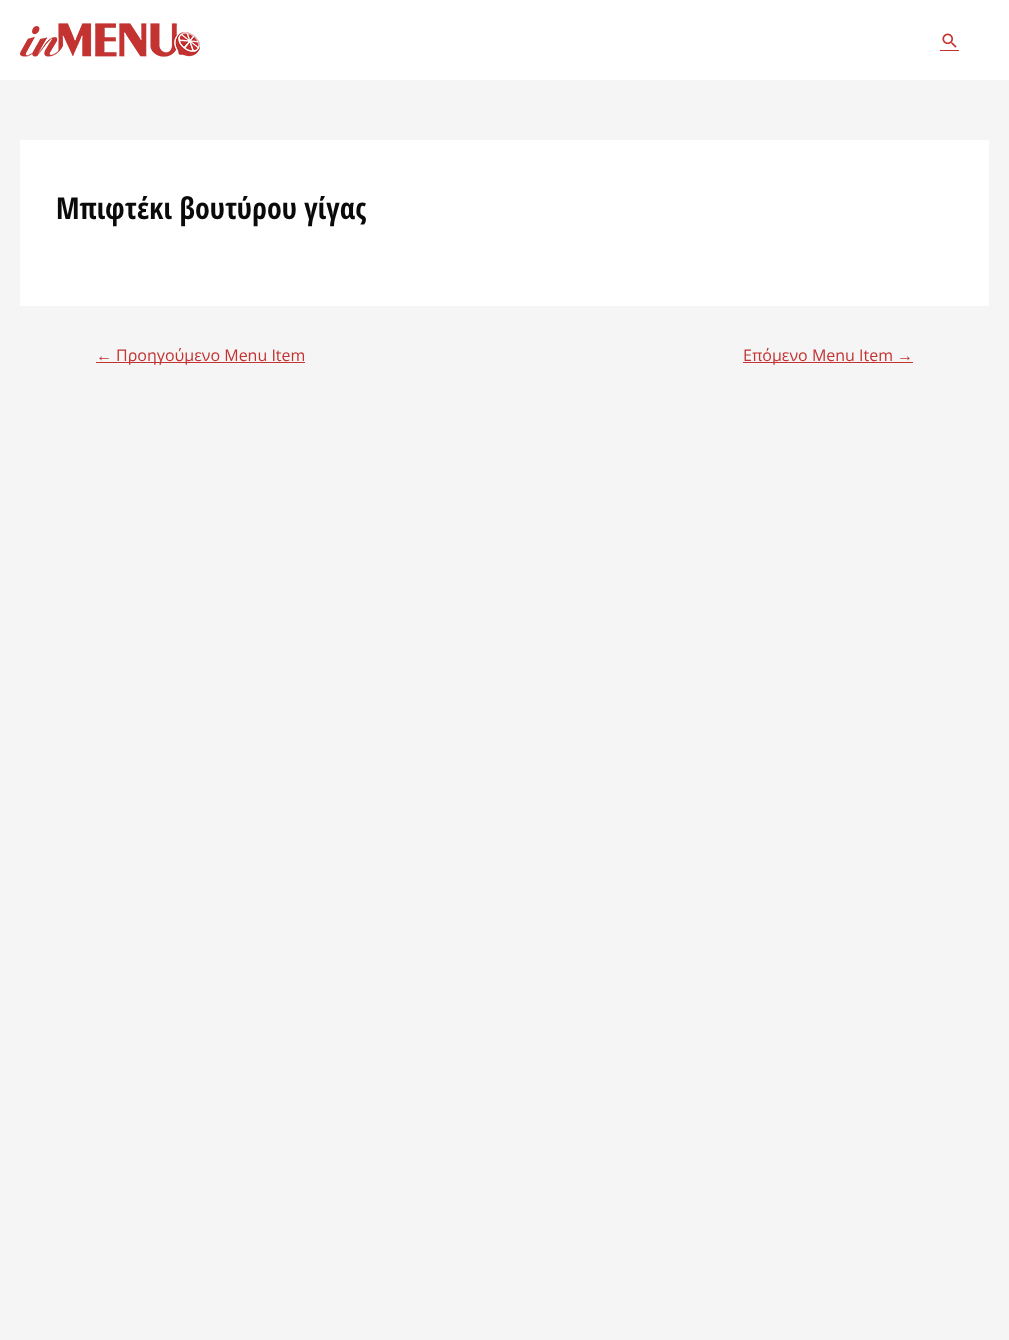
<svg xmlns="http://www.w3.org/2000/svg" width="1009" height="1340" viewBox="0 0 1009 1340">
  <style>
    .t1 { font: bold 30px Open Sans Condensed; fill: #0a0a0a; }
    .t2 { font: 16px Liberation Sans; fill: #c33332; }
    .t3 { font: 16px Open Sans; fill: #c33332; }
  </style>
  <rect width="100%" height="100%" fill="#f5f5f5"/>
  <rect x="0" y="0" width="1009" height="80" fill="#fff"/>
  <image x="20" y="23" width="180" height="34" href="images/1.png"/>
  <rect x="940" y="50" width="19" height="1" fill="#c33332"/>
  <image x="942" y="33" width="15" height="15" href="images/2.png"/>
  <rect x="20" y="140" width="969" height="166" fill="#fff"/>
  <text x="56" y="219" class="t1">Μπιφτέκι βουτύρου γίγας</text>
  <text x="96" y="361" class="t2">←</text>
  <rect x="96" y="362" width="209" height="1" fill="#c33332"/>
  <text x="116" y="361" class="t3">Προηγούμενο Menu Item</text>
  <rect x="743" y="362" width="170" height="1" fill="#c33332"/>
  <text x="743" y="361" class="t3">Επόμενο Menu Item</text>
  <text x="897" y="361" class="t2">→</text>
</svg>
